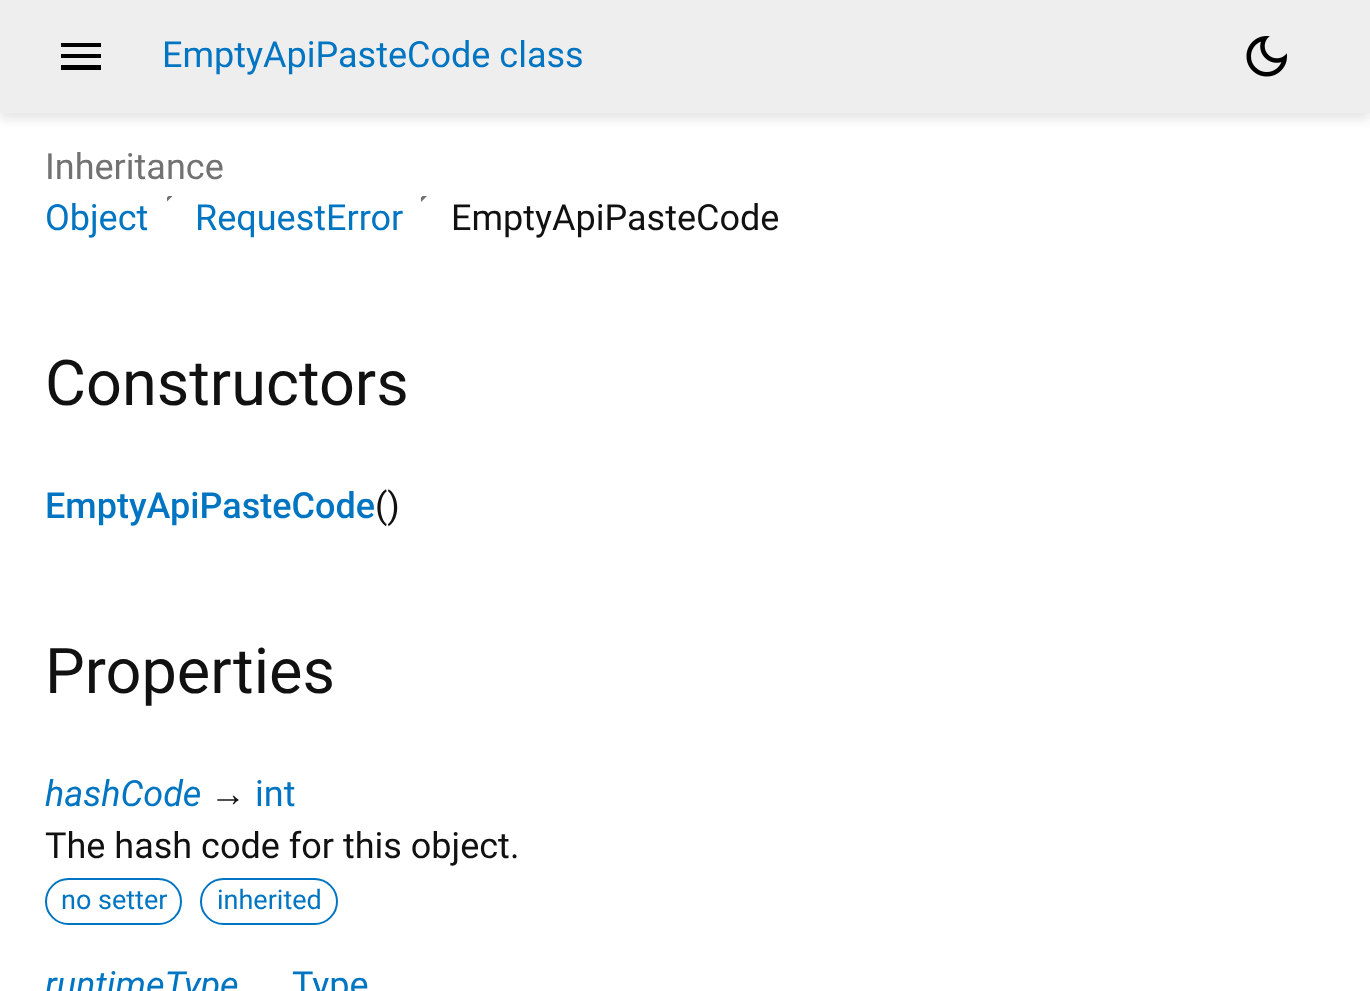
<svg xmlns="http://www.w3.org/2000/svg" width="1370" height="991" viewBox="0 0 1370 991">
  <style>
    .t1 { font: 36px Roboto; fill: #0175c2; }
    .t2 { font: 36px Roboto; fill: #727272; }
    .t3 { font: 36px Roboto; fill: #111; }
    .t4 { font: 63px Roboto; fill: #111; }
    .t5 { font: 500 36px Roboto; fill: #0175c2; }
    .t6 { font: italic 36px Roboto; fill: #0175c2; }
    .t7 { font: 36px Liberation Sans; fill: #111; }
    .t8 { font: 27px Roboto; fill: #0175c2; }
  </style>
  <defs>
    <clipPath id="clip1"><rect x="167" y="196" width="15" height="18"/></clipPath>
    <clipPath id="clip2"><rect x="421" y="196" width="16" height="18"/></clipPath>
  </defs>
  <rect width="100%" height="100%" fill="#fff"/>
  <rect x="0" y="7" width="1370" height="112" fill="#0000001a" filter="blur(5.5px)"/>
  <rect x="0" y="0" width="1370" height="113" fill="#eee"/>
  <path d="M61 70V65H101V70ZM61 58V54H101V58ZM61 47V43H101V47Z" fill="#000"/>
  <text x="162" y="67" class="t1">EmptyApiPasteCode class</text>
  <image x="1246" y="36" width="41" height="41" href="images/1.png"/>
  <text x="45" y="179" class="t2">Inheritance</text>
  <text x="45" y="230" class="t1">Object</text>
  <g clip-path="url(#clip1)">
    <path d="M163.5 187L161.5 189L168.5 196L161.5 202.5L163.5 205L172.5 196Z" fill="#727272"/>
  </g>
  <text x="195" y="230" class="t1">RequestError</text>
  <g clip-path="url(#clip2)">
    <path d="M418 187L415.5 189L422.5 196L415.5 202.5L418 205L427 196Z" fill="#727272"/>
  </g>
  <text x="451" y="230" class="t3">EmptyApiPasteCode</text>
  <text x="45" y="405" class="t4">Constructors</text>
  <text x="45" y="518" class="t5">EmptyApiPasteCode</text>
  <text x="375" y="518" class="t3">()</text>
  <text x="45" y="693" class="t4">Properties</text>
  <text x="45" y="806" class="t6">hashCode</text>
  <text x="210" y="806" class="t7">→</text>
  <text x="255" y="806" class="t1">int</text>
  <text x="45" y="858" class="t3">The hash code for this object.</text>
  <rect x="46" y="879" width="135" height="45" rx="22.5" fill="none" stroke="#0175c2" stroke-width="2"/>
  <text x="61" y="909" class="t8">no setter</text>
  <rect x="201" y="879" width="136" height="45" rx="22.5" fill="none" stroke="#0175c2" stroke-width="2"/>
  <text x="217" y="909" class="t8">inherited</text>
  <text x="45" y="997" class="t6">runtimeType</text>
  <text x="292" y="997" class="t1">Type</text>
</svg>
